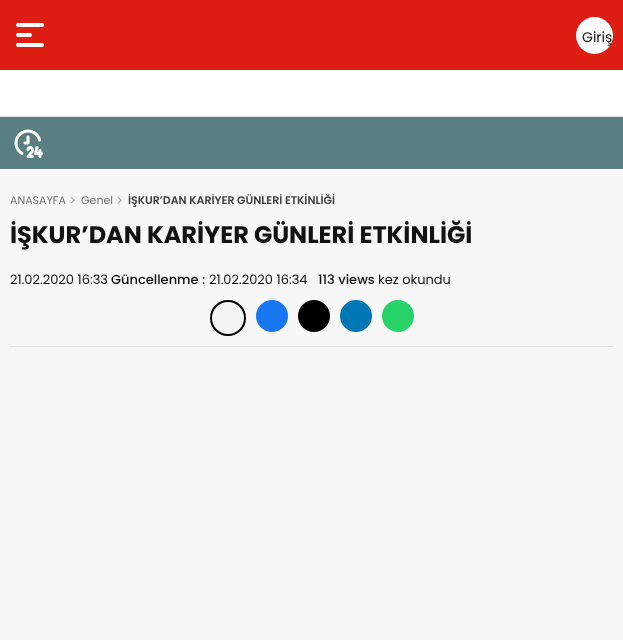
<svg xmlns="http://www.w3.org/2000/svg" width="623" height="640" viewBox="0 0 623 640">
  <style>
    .t1 { font: 14px Poppins; fill: #121212; }
    .t2 { font: 11px Poppins; fill: #6e6e6e; }
    .t3 { font: 13px Poppins; fill: #a5a5a5; }
    .t4 { font: 600 11px Poppins; fill: #404040; }
    .t5 { font: bold 24px Poppins; fill: #121212; }
    .t6 { font: 13px Poppins; fill: #121212; }
    .t7 { font: 500 13px Poppins; fill: #121212; }
  </style>
  <rect width="100%" height="100%" fill="#f7f7f7"/>
  <rect x="0" y="0" width="623" height="70" fill="#de1e12"/>
  <image x="16" y="23" width="28" height="24" href="images/1.png"/>
  <circle cx="594.5" cy="35.5" r="18.5" fill="#fff"/>
  <text x="582" y="42" class="t1">Giriş</text>
  <rect x="0" y="70" width="623" height="46" fill="#fff"/>
  <rect x="0" y="116" width="623" height="1" fill="#e1e1e1"/>
  <rect x="0" y="117" width="623" height="52" fill="#5a7f81"/>
  <image x="14" y="129" width="29" height="29" href="images/2.png"/>
  <text x="10" y="204" class="t2">ANASAYFA</text>
  <text x="69" y="205" class="t3">&gt;</text>
  <text x="81" y="204" class="t2">Genel</text>
  <text x="116" y="205" class="t3">&gt;</text>
  <text x="128" y="204" class="t4">İŞKUR’DAN KARİYER GÜNLERİ ETKİNLİĞİ</text>
  <text x="10" y="243" class="t5">İŞKUR’DAN KARİYER GÜNLERİ ETKİNLİĞİ</text>
  <rect x="10" y="346" width="603" height="1" fill="#e1e1e1"/>
  <text x="10" y="284" class="t6">21.02.2020 16:33</text>
  <text x="111" y="284" class="t7">Güncellenme :</text>
  <text x="209" y="284" class="t6">21.02.2020 16:34</text>
  <text x="318" y="284" class="t7">113 views</text>
  <text x="378" y="284" class="t6">kez okundu</text>
  <circle cx="228" cy="318" r="17" fill="#f4f4f4" stroke="#000" stroke-width="2"/>
  <circle cx="272" cy="316" r="16" fill="#1877f2"/>
  <circle cx="314" cy="316" r="16" fill="#000"/>
  <circle cx="356" cy="316" r="16" fill="#0077b5"/>
  <circle cx="398" cy="316" r="16" fill="#25d366"/>
</svg>
